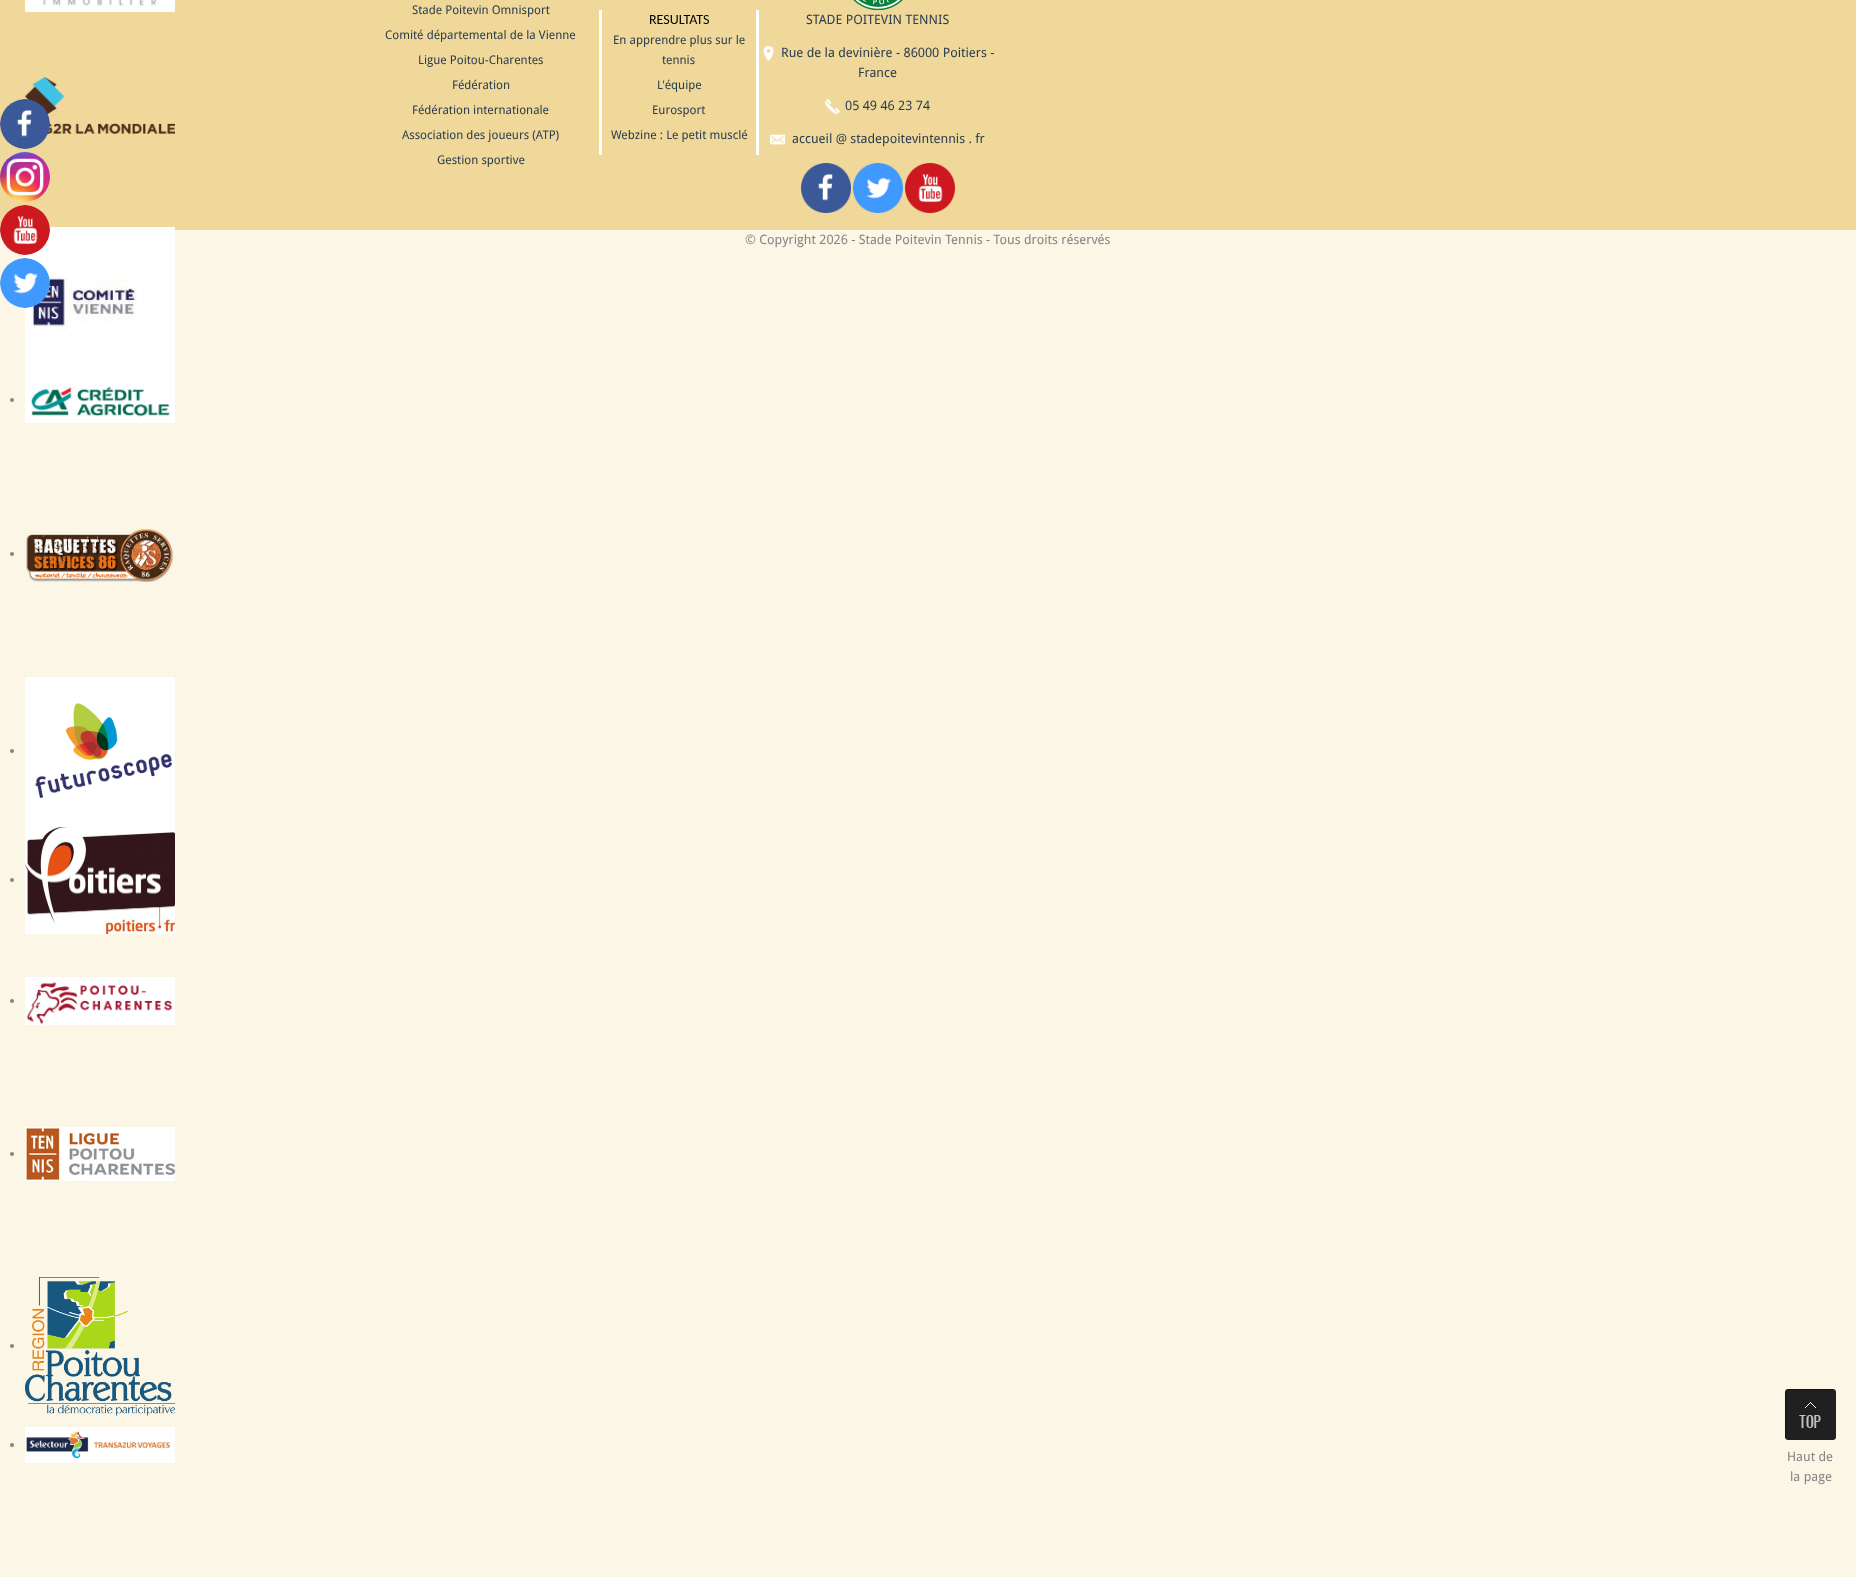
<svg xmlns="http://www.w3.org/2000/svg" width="1856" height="1577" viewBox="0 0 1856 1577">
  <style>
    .t1 { font: 12px Droid Sans; fill: #2c3e50; }
    .t2 { font: 14px Carlito; fill: #000; }
    .t3 { font: 13px Droid Sans; fill: #2c3e50; }
    .t4 { font: 13px Droid Sans; fill: #858585; }
  </style>
  <rect width="100%" height="100%" fill="#fbf6e6"/>
  <rect x="0" y="0" width="1856" height="230" fill="#efd899"/>
  <image x="25" y="0" width="150" height="12" href="images/1.png"/>
  <circle cx="12" cy="105" r="2" fill="#858585"/>
  <image x="25" y="77" width="150" height="57" href="images/2.png"/>
  <image x="25" y="227" width="150" height="150" href="images/3.png"/>
  <circle cx="12" cy="400" r="2" fill="#858585"/>
  <image x="25" y="377" width="150" height="46" href="images/4.png"/>
  <circle cx="12" cy="554" r="2" fill="#858585"/>
  <image x="26" y="529" width="148" height="53" href="images/5.png"/>
  <circle cx="12" cy="751" r="2" fill="#858585"/>
  <image x="25" y="677" width="150" height="150" href="images/6.png"/>
  <circle cx="12" cy="880" r="2" fill="#858585"/>
  <image x="25" y="827" width="150" height="107" href="images/7.png"/>
  <circle cx="12" cy="1001" r="2" fill="#858585"/>
  <image x="25" y="977" width="150" height="48" href="images/8.png"/>
  <circle cx="12" cy="1154" r="2" fill="#858585"/>
  <image x="25" y="1127" width="150" height="54" href="images/9.png"/>
  <circle cx="12" cy="1346" r="2" fill="#858585"/>
  <image x="25" y="1277" width="150" height="139" href="images/10.png"/>
  <circle cx="12" cy="1445" r="2" fill="#858585"/>
  <image x="25" y="1427" width="150" height="36" href="images/11.png"/>
  <text x="412" y="14" class="t1">Stade Poitevin Omnisport</text>
  <text x="385" y="39" class="t1">Comité départemental de la Vienne</text>
  <text x="418" y="64" class="t1">Ligue Poitou-Charentes</text>
  <text x="452" y="89" class="t1">Fédération</text>
  <text x="412" y="114" class="t1">Fédération internationale</text>
  <text x="402" y="139" class="t1">Association des joueurs (ATP)</text>
  <text x="437" y="164" class="t1">Gestion sportive</text>
  <rect x="756" y="10" width="3" height="145" fill="#fff"/>
  <rect x="599" y="10" width="3" height="145" fill="#fff"/>
  <text x="649" y="24" class="t2">RESULTATS</text>
  <text x="613" y="44" class="t1">En apprendre plus sur le</text>
  <text x="662" y="64" class="t1">tennis</text>
  <text x="657" y="89" class="t1">L'équipe</text>
  <text x="652" y="114" class="t1">Eurosport</text>
  <text x="611" y="139" class="t1">Webzine : Le petit musclé</text>
  <image x="853" y="0" width="50" height="10" href="images/12.png"/>
  <text x="806" y="24" class="t3">STADE POITEVIN TENNIS</text>
  <image x="763" y="46" width="12" height="15" href="images/13.png"/>
  <text x="781" y="57" class="t3">Rue de la devinière - 86000 Poitiers -</text>
  <text x="858" y="77" class="t3">France</text>
  <image x="825" y="99" width="15" height="15" href="images/14.png"/>
  <text x="845" y="110" class="t3">05 49 46 23 74</text>
  <image x="770" y="134" width="15" height="11" href="images/15.png"/>
  <text x="792" y="143" class="t3">accueil @ stadepoitevintennis . fr</text>
  <image x="801" y="163" width="50" height="50" href="images/16.png"/>
  <image x="853" y="163" width="50" height="50" href="images/17.png"/>
  <image x="905" y="163" width="50" height="50" href="images/18.png"/>
  <image x="0" y="99" width="50" height="50" href="images/19.png"/>
  <image x="0" y="152" width="50" height="50" href="images/20.png"/>
  <image x="0" y="205" width="50" height="50" href="images/21.png"/>
  <image x="0" y="258" width="50" height="50" href="images/22.png"/>
  <text x="745" y="244" class="t4">© Copyright 2026 - Stade Poitevin Tennis - Tous droits réservés</text>
  <image x="1785" y="1389" width="51" height="51" href="images/23.png"/>
  <text x="1787" y="1461" class="t4">Haut de</text>
  <text x="1790" y="1481" class="t4">la page</text>
</svg>
